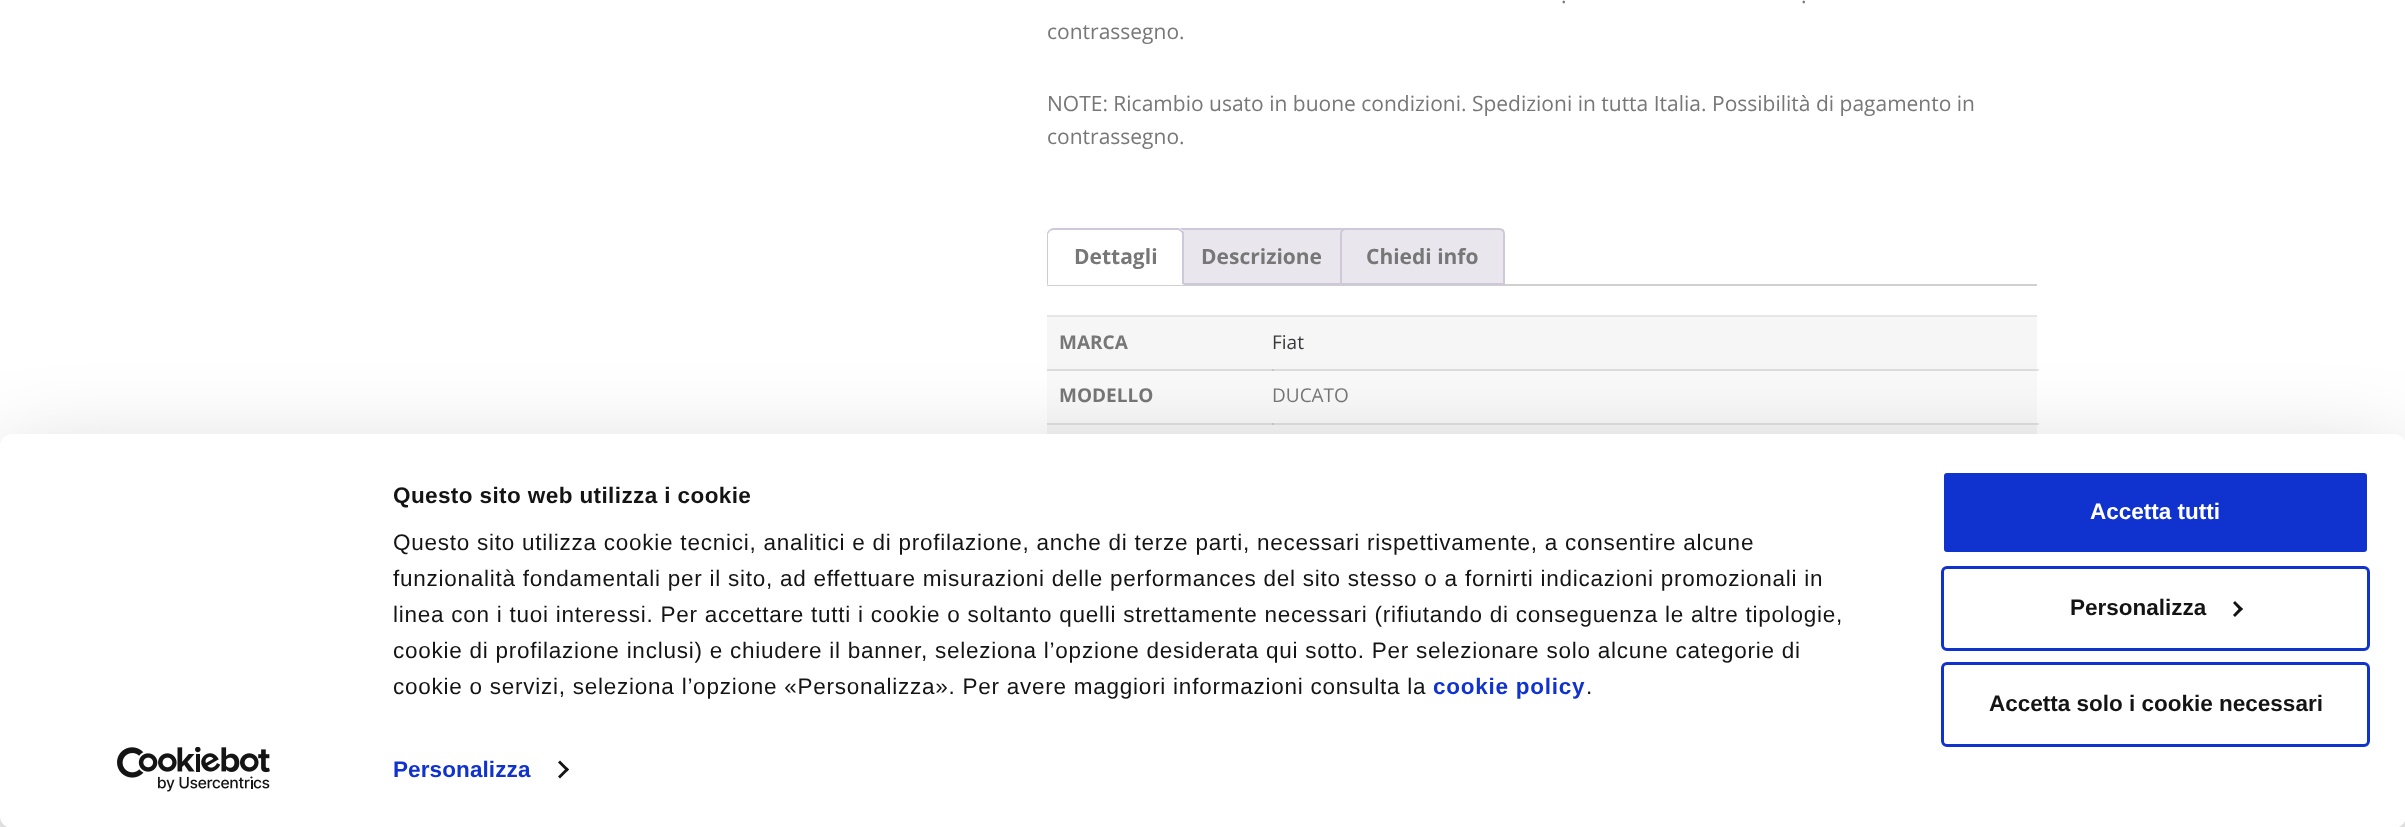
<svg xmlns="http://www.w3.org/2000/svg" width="2405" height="827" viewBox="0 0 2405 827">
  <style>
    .t1 { font: 21px Open Sans; fill: #777; }
    .t2 { font: bold 21px Open Sans; fill: #777; }
    .t3 { font: bold 19px Open Sans; fill: #777; }
    .t4 { font: 19px Open Sans; fill: #39393c; }
    .t5 { font: 19px Open Sans; fill: #777; }
    .t6 { font: bold 22.5px Liberation Sans; letter-spacing: 0.4px; fill: #141414; }
    .t7 { font: 22.5px Liberation Sans; letter-spacing: 0.75px; fill: #141414; }
    .t8 { font: bold 22.5px Liberation Sans; letter-spacing: 0.75px; fill: #1032cf; }
    .t9 { font: bold 22.5px Liberation Sans; letter-spacing: 0.1px; fill: #1032cf; }
    .t10 { font: bold 22.5px Liberation Sans; fill: #fff; }
    .t11 { font: bold 22.5px Liberation Sans; fill: #141414; }
  </style>
  <rect width="100%" height="100%" fill="#fff"/>
  <rect x="2037" y="369" width="2" height="2" fill="#e6e6e6"/>
  <rect x="2037" y="423" width="2" height="2" fill="#e6e6e6"/>
  <text x="1561" y="3" class="t1">.</text>
  <text x="1801" y="3" class="t1">.</text>
  <text x="1047" y="39" class="t1">contrassegno.</text>
  <text x="1047" y="111" class="t1">NOTE: Ricambio usato in buone condizioni. Spedizioni in tutta Italia. Possibilità di pagamento in</text>
  <text x="1047" y="144" class="t1">contrassegno.</text>
  <rect x="1047" y="284" width="990" height="2" fill="#d3ced2"/>
  <path d="M1181 229H1343C1346 229 1348 231 1348 234V284H1176V234C1176 231 1178 229 1181 229Z" fill="#e9e6ed" stroke="#cfc8d8" stroke-width="2"/>
  <path d="M1053 228H1178C1181.5 228 1184 230.5 1184 234V285H1047V234C1047 230.5 1049.5 228 1053 228Z" fill="#fff"/>
  <path d="M1053 228C1052 228 1050 229 1049 230L1050 231L1053 230H1178L1180 231L1182 230C1181 229 1179 228 1178 228Z" fill="#cfc8d8"/>
  <path d="M1184 232V285L1182 284V233L1180 231L1182 230Z" fill="#cfc8d8"/>
  <path d="M1184 285L1182 284H1048L1047 285Z" fill="#fff"/>
  <path d="M1047 285L1048 284V234L1050 231L1049 230C1048 231 1047 232 1047 234Z" fill="#cfc8d8"/>
  <text x="1074" y="264" class="t2">Dettagli</text>
  <text x="1201" y="264" class="t2">Descrizione</text>
  <path d="M1346 229H1499C1502 229 1504 231 1504 234V284H1341V234C1341 231 1343 229 1346 229Z" fill="#e9e6ed" stroke="#cfc8d8" stroke-width="2"/>
  <text x="1366" y="264" class="t2">Chiedi info</text>
  <rect x="1047" y="315" width="990" height="2" fill="#e6e6e6"/>
  <rect x="1047" y="317" width="990" height="52" fill="#f6f6f6"/>
  <rect x="1047" y="369" width="990" height="2" fill="#ddd"/>
  <text x="1059" y="349" class="t3">MARCA</text>
  <rect x="1272" y="369" width="2" height="2" fill="#c7c7c7"/>
  <text x="1272" y="349" class="t4">Fiat</text>
  <rect x="1047" y="371" width="990" height="52" fill="#f9f9f9"/>
  <rect x="1047" y="423" width="990" height="2" fill="#e0e0e0"/>
  <text x="1059" y="402" class="t3">MODELLO</text>
  <rect x="1272" y="423" width="2" height="2" fill="#cacaca"/>
  <text x="1272" y="402" class="t5">DUCATO</text>
  <rect x="1047" y="425" width="990" height="9" fill="#f6f6f6"/>
  <rect x="0" y="479" width="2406" height="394" rx="12" fill="#0000004d" filter="blur(52.5px)"/>
  <rect x="0" y="434" width="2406" height="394" rx="12" fill="#fff"/>
  <text x="393" y="503" class="t6">Questo sito web utilizza i cookie</text>
  <text x="393" y="550" class="t7">Questo sito utilizza cookie tecnici, analitici e di profilazione, anche di terze parti, necessari rispettivamente, a consentire alcune</text>
  <text x="393" y="586" class="t7">funzionalità fondamentali per il sito, ad effettuare misurazioni delle performances del sito stesso o a fornirti indicazioni promozionali in</text>
  <text x="393" y="622" class="t7">linea con i tuoi interessi. Per accettare tutti i cookie o soltanto quelli strettamente necessari (rifiutando di conseguenza le altre tipologie,</text>
  <text x="393" y="658" class="t7">cookie di profilazione inclusi) e chiudere il banner, seleziona l’opzione desiderata qui sotto. Per selezionare solo alcune categorie di</text>
  <text x="393" y="694" class="t7">cookie o servizi, seleziona l’opzione «Personalizza». Per avere maggiori informazioni consulta la</text>
  <text x="1433" y="694" class="t8">cookie policy</text>
  <text x="1586" y="694" class="t7">.</text>
  <text x="393" y="777" class="t9">Personalizza</text>
  <path d="M560 760.5L569 769.5L567 771.5L558 762.5Z" fill="#141414"/>
  <path d="M567 767.5L569 769.5L560 778.5L558 776.5Z" fill="#141414"/>
  <rect x="1942.5" y="471.5" width="426" height="82" rx="4.5" fill="#1032cf" stroke="#fff" stroke-width="3"/>
  <text x="2090" y="519" class="t10">Accetta tutti</text>
  <rect x="1942.5" y="567.5" width="426" height="82" rx="4.5" fill="none" stroke="#1032cf" stroke-width="3"/>
  <text x="2070" y="615" class="t11">Personalizza</text>
  <path d="M2235 601L2243 609L2240.5 611L2233 603Z" fill="#141414"/>
  <path d="M2240.5 607L2243 609L2235 617L2233 615Z" fill="#141414"/>
  <rect x="1942.5" y="663.5" width="426" height="82" rx="4.5" fill="none" stroke="#1032cf" stroke-width="3"/>
  <text x="1989" y="711" class="t11">Accetta solo i cookie necessari</text>
  <image x="117" y="747" width="153" height="45" href="images/1.png"/>
</svg>
